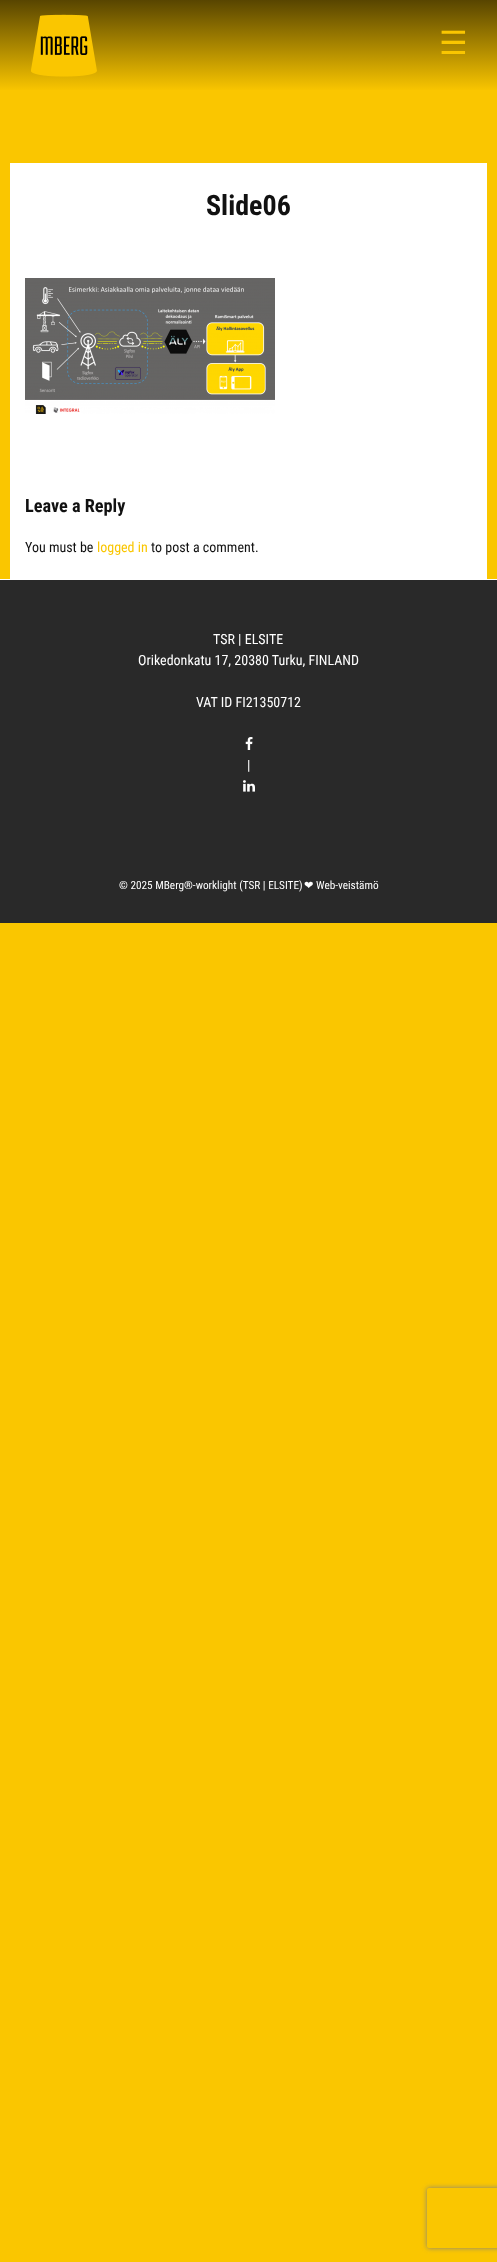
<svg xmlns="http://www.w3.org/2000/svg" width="497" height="2262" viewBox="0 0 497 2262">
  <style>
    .t1 { font: 32px DejaVu Sans; letter-spacing: 1px; fill: #fac600; }
    .t2 { font: bold 28px Roboto Condensed; fill: #111; }
    .t3 { font: bold 18.25px Roboto Condensed; fill: #111; }
    .t4 { font: 14px Roboto Condensed; fill: #111; }
    .t5 { font: 14px Roboto Condensed; fill: #fac600; }
    .t6 { font: 14px Roboto Condensed; fill: #fff; }
    .t7 { font: 11.25px Roboto Condensed; fill: #fff; }
    .t8 { font: 11.25px DejaVu Sans; fill: #fff; }
  </style>
  <defs>
    <linearGradient id="g1" gradientUnits="userSpaceOnUse" x1="249" y1="0" x2="249" y2="91"><stop offset="0" stop-color="#584500"/><stop offset="1" stop-color="#fac600"/></linearGradient>
    <clipPath id="clip1"><path d="M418 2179H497V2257H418ZM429 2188H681C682 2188 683 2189 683 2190V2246C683 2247 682 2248 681 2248H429C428 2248 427 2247 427 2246V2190C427 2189 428 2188 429 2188Z" clip-rule="evenodd"/></clipPath>
  </defs>
  <rect width="100%" height="100%" fill="#fac600"/>
  <rect x="0" y="0" width="497" height="90" fill="url(#g1)"/>
  <image x="31" y="14" width="66" height="63" href="images/1.png"/>
  <text x="439" y="54" class="t1">☰</text>
  <rect x="10" y="163" width="477" height="416" fill="#fff"/>
  <text x="206" y="215" class="t2">Slide06</text>
  <image x="25" y="278" width="250" height="136" href="images/2.png"/>
  <text x="25" y="512" class="t3">Leave a Reply</text>
  <text x="25" y="552" class="t4">You must be</text>
  <text x="97" y="552" class="t5">logged in</text>
  <text x="151" y="552" class="t4">to post a comment.</text>
  <rect x="0" y="580" width="497" height="343" fill="#292929"/>
  <rect x="0" y="579" width="497" height="1" fill="#fff"/>
  <text x="213" y="644" class="t6">TSR | ELSITE</text>
  <text x="138" y="665" class="t6">Orikedonkatu 17, 20380 Turku, FINLAND</text>
  <text x="196" y="707" class="t6">VAT ID FI21350712</text>
  <image x="245" y="737" width="8" height="13" href="images/3.png"/>
  <text x="247" y="770" class="t6">|</text>
  <image x="243" y="780" width="12" height="12" href="images/4.png"/>
  <text x="119" y="889" class="t7">© 2025 MBerg®-worklight (TSR | ELSITE)</text>
  <text x="304" y="889" class="t8">❤</text>
  <text x="316" y="889" class="t7">Web-veistämö</text>
  <g clip-path="url(#clip1)">
    <rect x="427" y="2188" width="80" height="60" rx="2" fill="#808080" filter="blur(2.5px)"/>
  </g>
</svg>
